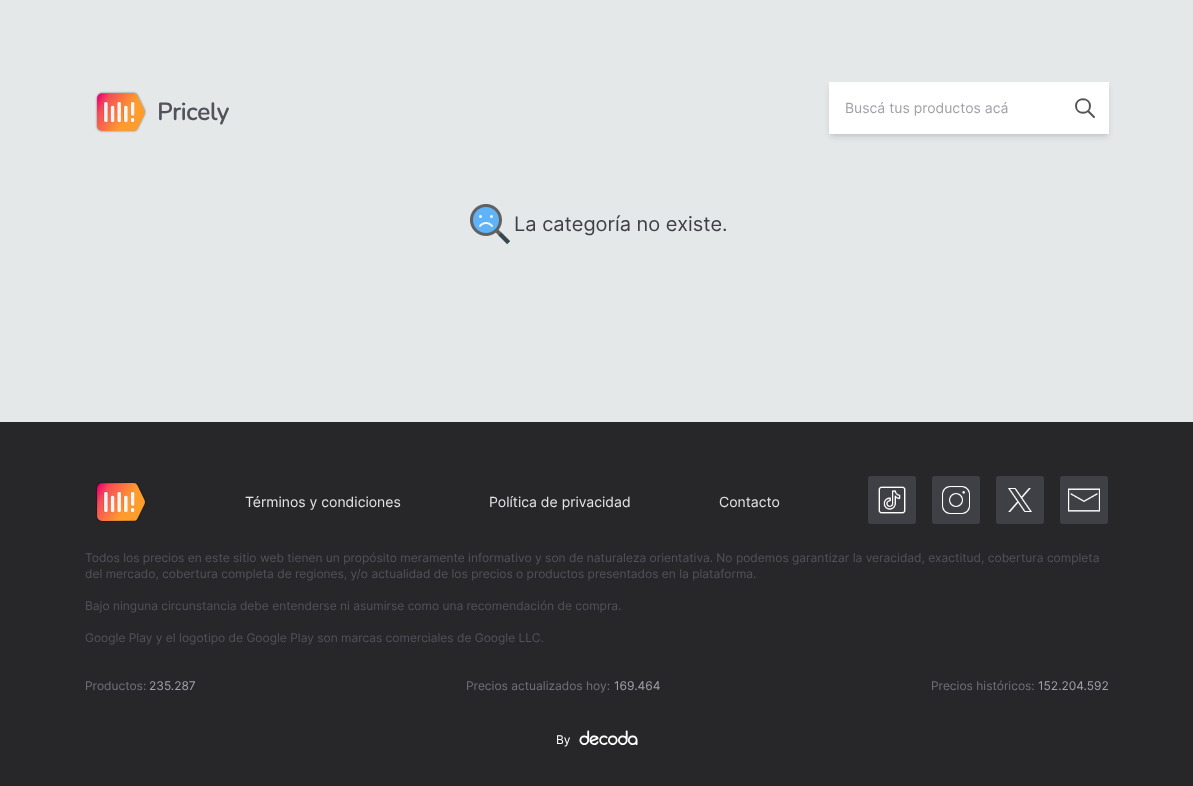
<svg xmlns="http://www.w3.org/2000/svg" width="1193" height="786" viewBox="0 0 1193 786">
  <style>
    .t1 { font: bold 24px Nunito; fill: #52525b; }
    .t2 { font: 14px Inter; fill: #a1a1aa; }
    .t3 { font: 20px Inter; fill: #3f3f46; }
    .t4 { font: 14px Inter; fill: #e4e4e7; }
    .t5 { font: 12px Inter; fill: #52525b; }
    .t6 { font: 12px Inter; fill: #71717a; }
    .t7 { font: 12px Inter; fill: #a1a1aa; }
    .t8 { font: 12px Inter; fill: #fff; }
    .t9 { font: bold 20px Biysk; fill: #fff; }
  </style>
  <rect width="100%" height="100%" fill="#e4e8e9"/>
  <image x="95" y="91" width="52" height="42" href="images/1.png"/>
  <text x="157" y="120" class="t1">Pricely</text>
  <rect x="831" y="86" width="276" height="48" fill="#0000001a" filter="blur(2px)"/>
  <rect x="830" y="87" width="278" height="50" fill="#0000001a" filter="blur(3px)"/>
  <rect x="829" y="82" width="280" height="52" fill="#fff"/>
  <text x="845" y="113" class="t2">Buscá tus productos acá</text>
  <path d="M1094 117L1088 111M1090 106C1090 115 1076 115 1076 106C1076 97 1090 97 1090 106Z" fill="none" stroke="#555" stroke-width="2" stroke-linecap="round" stroke-linejoin="round"/>
  <image x="470" y="204" width="40" height="40" href="images/2.png"/>
  <text x="514" y="231" class="t3">La categoría no existe.</text>
  <rect x="0" y="422" width="1193" height="364" fill="#27272a"/>
  <image x="96" y="482" width="50" height="40" href="images/3.png"/>
  <text x="245" y="507" class="t4">Términos y condiciones</text>
  <text x="489" y="507" class="t4">Política de privacidad</text>
  <text x="719" y="507" class="t4">Contacto</text>
  <rect x="868" y="476" width="48" height="48" rx="2" fill="#3f3f46"/>
  <image x="878" y="486" width="28" height="28" href="images/4.png"/>
  <rect x="932" y="476" width="48" height="48" rx="2" fill="#3f3f46"/>
  <image x="942" y="486" width="28" height="28" href="images/5.png"/>
  <rect x="996" y="476" width="48" height="48" rx="2" fill="#3f3f46"/>
  <image x="1008" y="488" width="24" height="24" href="images/6.png"/>
  <rect x="1060" y="476" width="48" height="48" rx="2" fill="#3f3f46"/>
  <image x="1068" y="488" width="32" height="24" href="images/7.png"/>
  <text x="85" y="562" class="t5">Todos los precios en este sitio web tienen un propósito meramente informativo y son de naturaleza orientativa. No podemos garantizar la veracidad, exactitud, cobertura completa</text>
  <text x="85" y="578" class="t5">del mercado, cobertura completa de regiones, y/o actualidad de los precios o productos presentados en la plataforma.</text>
  <text x="85" y="610" class="t5">Bajo ninguna circunstancia debe entenderse ni asumirse como una recomendación de compra.</text>
  <text x="85" y="642" class="t5">Google Play y el logotipo de Google Play son marcas comerciales de Google LLC.</text>
  <text x="85" y="690" class="t6">Productos:</text>
  <text x="149" y="690" class="t7">235.287</text>
  <text x="466" y="690" class="t6">Precios actualizados hoy:</text>
  <text x="614" y="690" class="t7">169.464</text>
  <text x="931" y="690" class="t6">Precios históricos:</text>
  <text x="1038" y="690" class="t7">152.204.592</text>
  <text x="556" y="744" class="t8">By</text>
  <text x="579" y="745" class="t9">decoda</text>
</svg>
